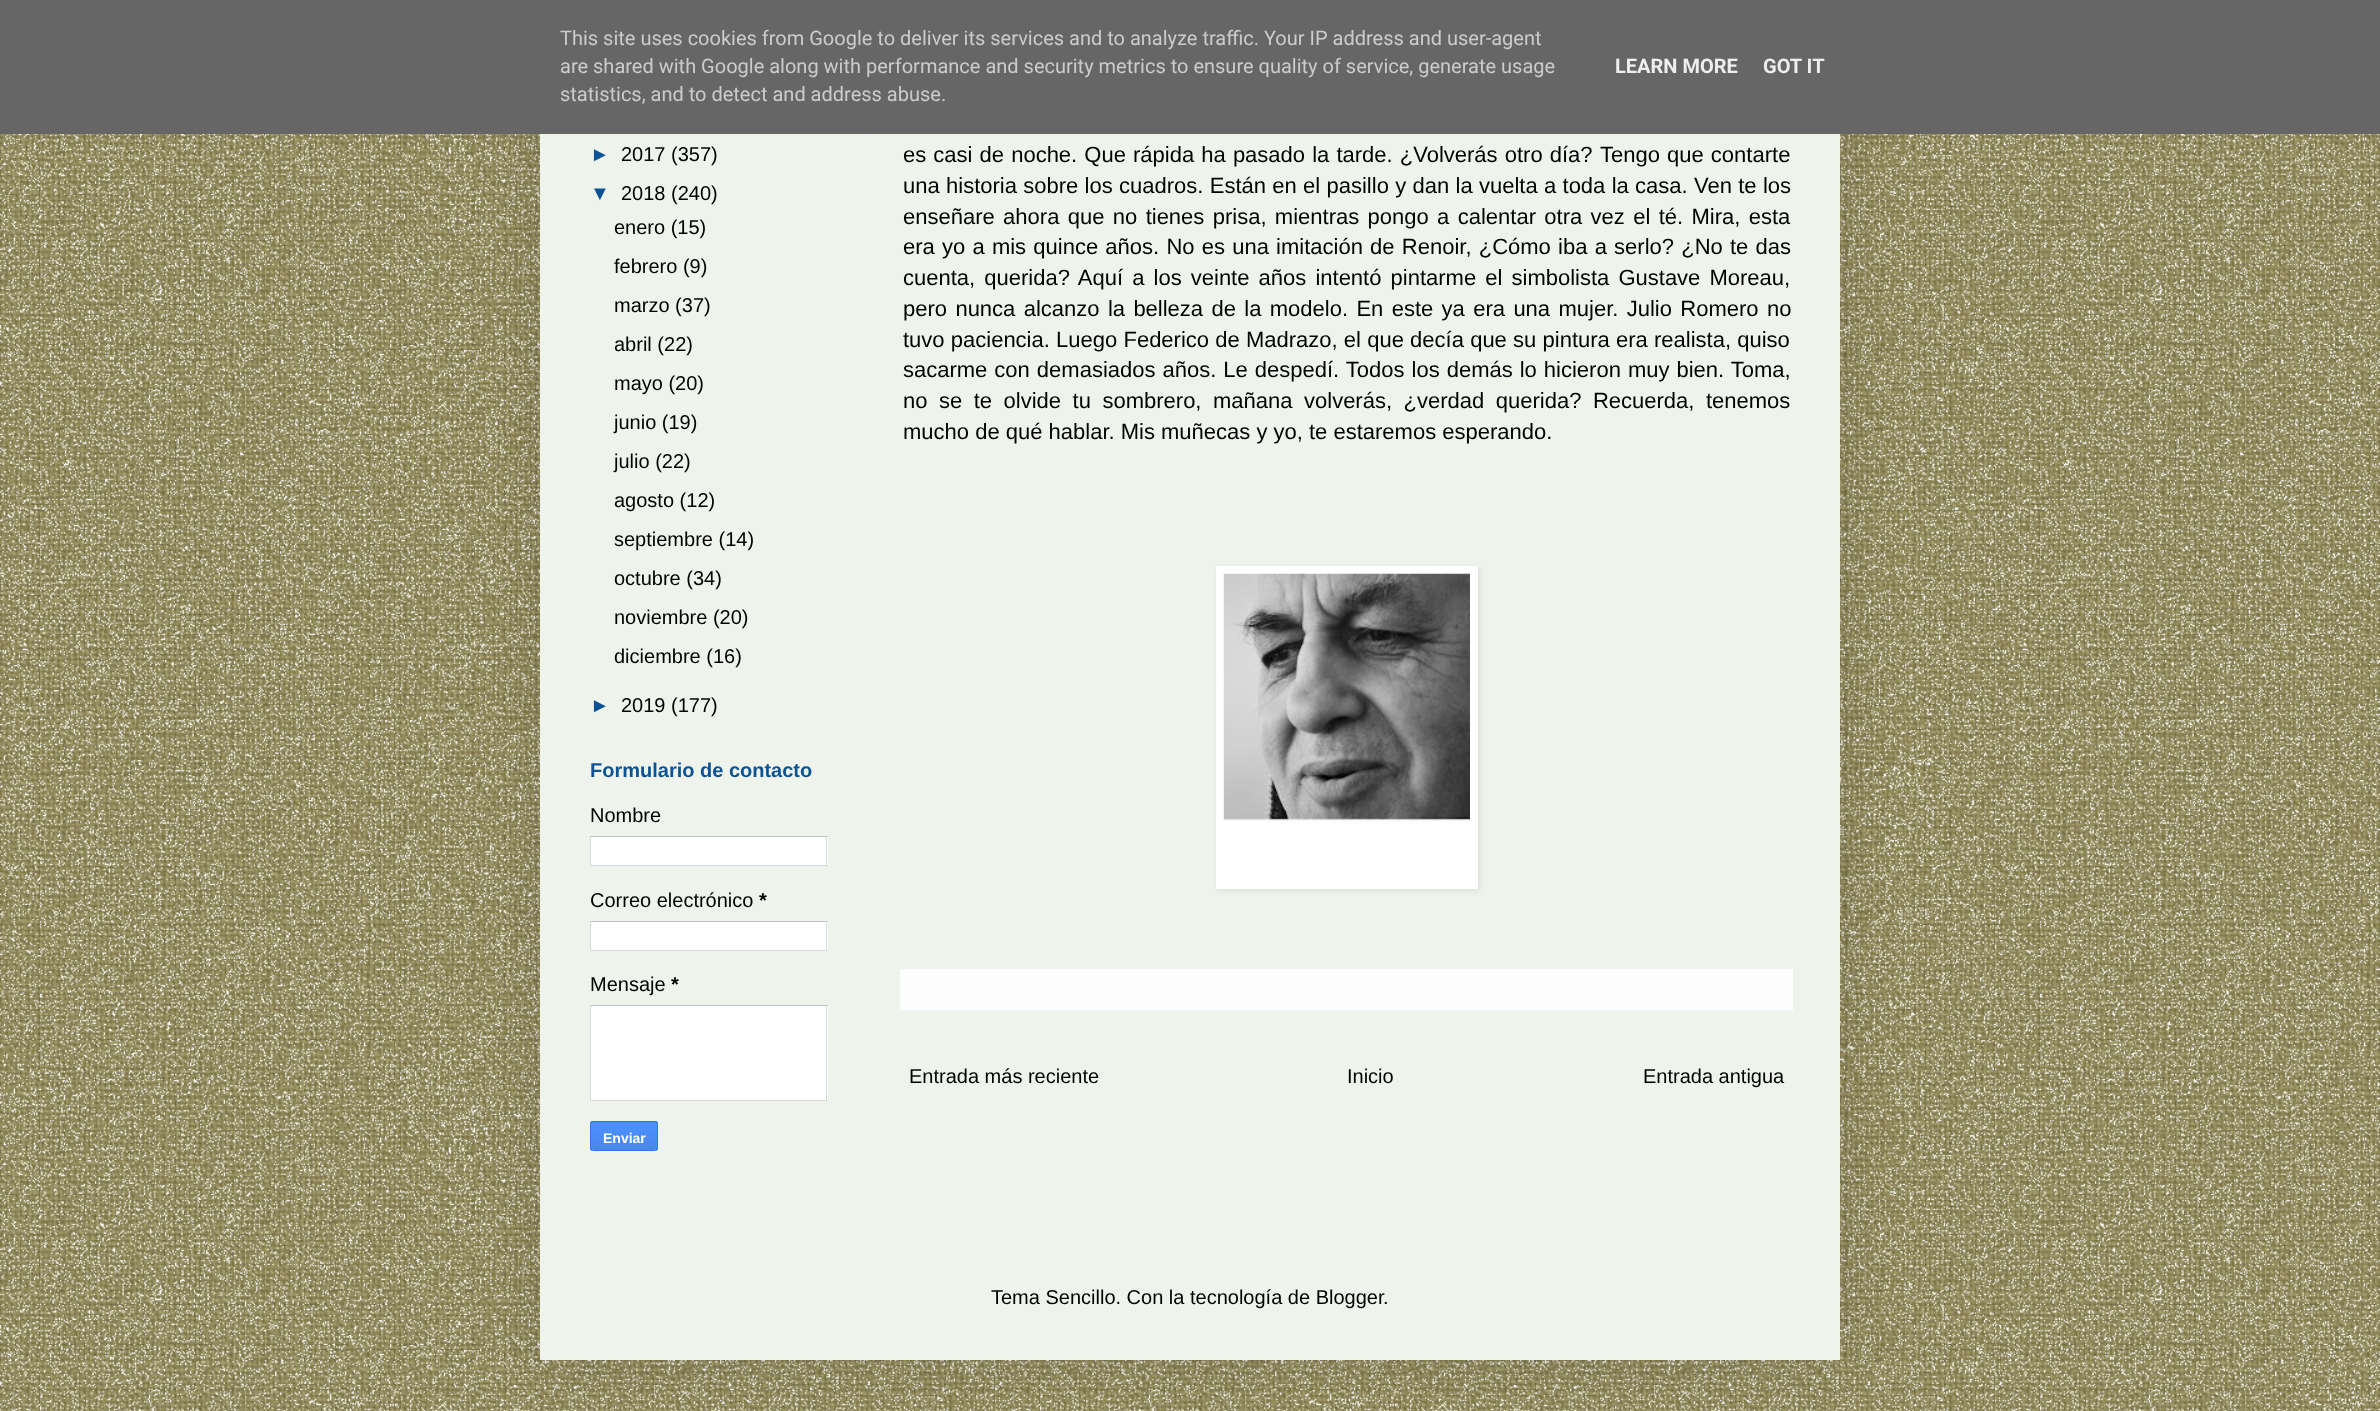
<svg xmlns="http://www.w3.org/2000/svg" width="2380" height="1411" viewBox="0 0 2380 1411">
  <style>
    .t1 { font: 20px Roboto; fill: #ccc; }
    .t2 { font: bold 20px Roboto; fill: #eee; }
    .t3 { font: 20px Liberation Sans; fill: #0b5394; }
    .t4 { font: 20px Liberation Sans; fill: #000; }
    .t5 { font: bold 20px Liberation Sans; fill: #0b5394; }
    .t6 { font: bold 20px Liberation Sans; fill: #000; }
    .t7 { font: bold 14px Liberation Sans; fill: #fff; }
    .t8 { font: 22px Liberation Sans; fill: #000; }
  </style>
  <defs>
    <clipPath id="clip1"><rect x="590" y="1121" width="68" height="30" rx="2.5"/></clipPath>
    <linearGradient id="g1" gradientUnits="userSpaceOnUse" x1="624" y1="1095" x2="624" y2="1123"><stop offset="0" stop-color="#4d90fe"/><stop offset="1" stop-color="#4787ed"/></linearGradient>
    <linearGradient id="g2" gradientUnits="userSpaceOnUse" x1="624" y1="1123" x2="624" y2="1150"><stop offset="0" stop-color="#4d90fe"/><stop offset="1" stop-color="#4787ed"/></linearGradient>
  </defs>
  <rect width="100%" height="100%" fill="#fff"/>
  <image x="0" y="134" width="2380" height="1277" href="images/1.png"/>
  <rect x="540" y="-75" width="1300" height="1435" fill="#00000026" filter="blur(25px)"/>
  <rect x="0" y="0" width="2380" height="134" fill="#666"/>
  <text x="560" y="45" class="t1">This site uses cookies from Google to deliver its services and to analyze traffic. Your IP address and user-agent</text>
  <text x="560" y="73" class="t1">are shared with Google along with performance and security metrics to ensure quality of service, generate usage</text>
  <text x="560" y="101" class="t1">statistics, and to detect and address abuse.</text>
  <text x="1615" y="73" class="t2">LEARN MORE</text>
  <text x="1763" y="73" class="t2">GOT IT</text>
  <rect x="540" y="134" width="1300" height="1226" fill="#eef4ec"/>
  <rect x="864" y="134" width="1" height="1037" fill="#f3f3f3"/>
  <text x="590" y="161" class="t3">►</text>
  <text x="621" y="161" class="t4">2017 (357)</text>
  <text x="590" y="200" class="t3">▼</text>
  <text x="621" y="200" class="t4">2018 (240)</text>
  <text x="614" y="234" class="t4">enero (15)</text>
  <text x="614" y="273" class="t4">febrero (9)</text>
  <text x="614" y="312" class="t4">marzo (37)</text>
  <text x="614" y="351" class="t4">abril (22)</text>
  <text x="614" y="390" class="t4">mayo (20)</text>
  <text x="614" y="429" class="t4">junio (19)</text>
  <text x="614" y="468" class="t4">julio (22)</text>
  <text x="614" y="507" class="t4">agosto (12)</text>
  <text x="614" y="546" class="t4">septiembre (14)</text>
  <text x="614" y="585" class="t4">octubre (34)</text>
  <text x="614" y="624" class="t4">noviembre (20)</text>
  <text x="614" y="663" class="t4">diciembre (16)</text>
  <text x="590" y="712" class="t3">►</text>
  <text x="621" y="712" class="t4">2019 (177)</text>
  <text x="590" y="777" class="t5">Formulario de contacto</text>
  <text x="590" y="822" class="t4">Nombre</text>
  <rect x="591" y="837" width="237" height="28" fill="#fff"/>
  <rect x="590" y="836" width="238" height="1" fill="#c0c0c0"/>
  <rect x="826" y="836" width="1" height="30" fill="#d9d9d9"/>
  <rect x="590" y="865" width="238" height="1" fill="#d9d9d9"/>
  <rect x="590" y="836" width="1" height="30" fill="#d9d9d9"/>
  <text x="590" y="907" class="t4">Correo electrónico</text>
  <text x="759" y="907" class="t6">*</text>
  <rect x="591" y="922" width="237" height="28" fill="#fff"/>
  <rect x="590" y="921" width="238" height="1" fill="#c0c0c0"/>
  <rect x="826" y="921" width="1" height="30" fill="#d9d9d9"/>
  <rect x="590" y="950" width="238" height="1" fill="#d9d9d9"/>
  <rect x="590" y="921" width="1" height="30" fill="#d9d9d9"/>
  <text x="590" y="991" class="t4">Mensaje</text>
  <text x="671" y="991" class="t6">*</text>
  <rect x="591" y="1006" width="237" height="94" fill="#fff"/>
  <rect x="590" y="1005" width="238" height="1" fill="#c0c0c0"/>
  <rect x="826" y="1005" width="1" height="96" fill="#d9d9d9"/>
  <rect x="590" y="1100" width="238" height="1" fill="#d9d9d9"/>
  <rect x="590" y="1005" width="1" height="96" fill="#d9d9d9"/>
  <g clip-path="url(#clip1)">
    <rect x="590" y="1121" width="68" height="2" fill="url(#g1)"/>
  </g>
  <rect x="590" y="1123" width="68" height="27" fill="url(#g2)"/>
  <rect x="590.5" y="1121.5" width="67" height="29" rx="2" fill="none" stroke="#3079ed"/>
  <text x="603" y="1143" class="t7">Enviar</text>
  <text x="903" y="162" word-spacing="1" class="t8">es casi de noche. Que rápida ha pasado la tarde. ¿Volverás otro día?</text>
  <text x="1600" y="162" word-spacing="1" class="t8">Tengo que contarte</text>
  <text x="903" y="193" word-spacing="0.2" class="t8">una historia sobre los cuadros. Están en el pasillo y dan la vuelta a toda la casa. Ven te los</text>
  <text x="903" y="224" word-spacing="2.25" class="t8">enseñare ahora que no tienes prisa, mientras pongo a calentar otra vez el té. Mira, esta</text>
  <text x="903" y="254" word-spacing="1.1" class="t8">era yo a mis quince años. No es una imitación de Renoir, ¿Cómo iba a serlo? ¿No te das</text>
  <text x="903" y="285" word-spacing="3" class="t8">cuenta, querida? Aquí a los veinte años intentó pintarme el simbolista Gustave Moreau,</text>
  <text x="903" y="316" word-spacing="2.25" class="t8">pero nunca alcanzo la belleza de la modelo. En este ya era una mujer. Julio Romero no</text>
  <text x="903" y="347" word-spacing="0.1" class="t8">tuvo paciencia. Luego Federico de Madrazo, el que decía que su pintura era realista, quiso</text>
  <text x="903" y="377" word-spacing="0.9" class="t8">sacarme con demasiados años. Le despedí. Todos los demás lo hicieron muy bien. Toma,</text>
  <text x="903" y="408" word-spacing="5.4" class="t8">no se te olvide tu sombrero, mañana volverás, ¿verdad querida? Recuerda, tenemos</text>
  <text x="903" y="439" class="t8">mucho de qué hablar. Mis muñecas y yo, te estaremos esperando.</text>
  <rect x="1218" y="568" width="261" height="322" fill="#0000001a" filter="blur(3px)"/>
  <rect x="1216" y="566" width="262" height="323" fill="#fff"/>
  <image x="1223" y="573" width="247" height="251" href="images/2.png"/>
  <rect x="900" y="969" width="893" height="41" fill="#fdfdfd"/>
  <rect x="900" y="1010" width="893" height="1" fill="#f3f3f3"/>
  <text x="909" y="1083" class="t4">Entrada más reciente</text>
  <text x="1347" y="1083" class="t4">Inicio</text>
  <text x="1643" y="1083" class="t4">Entrada antigua</text>
  <text x="991" y="1304" class="t4">Tema Sencillo. Con la tecnología de Blogger</text>
  <text x="1383" y="1304" class="t4">.</text>
</svg>
